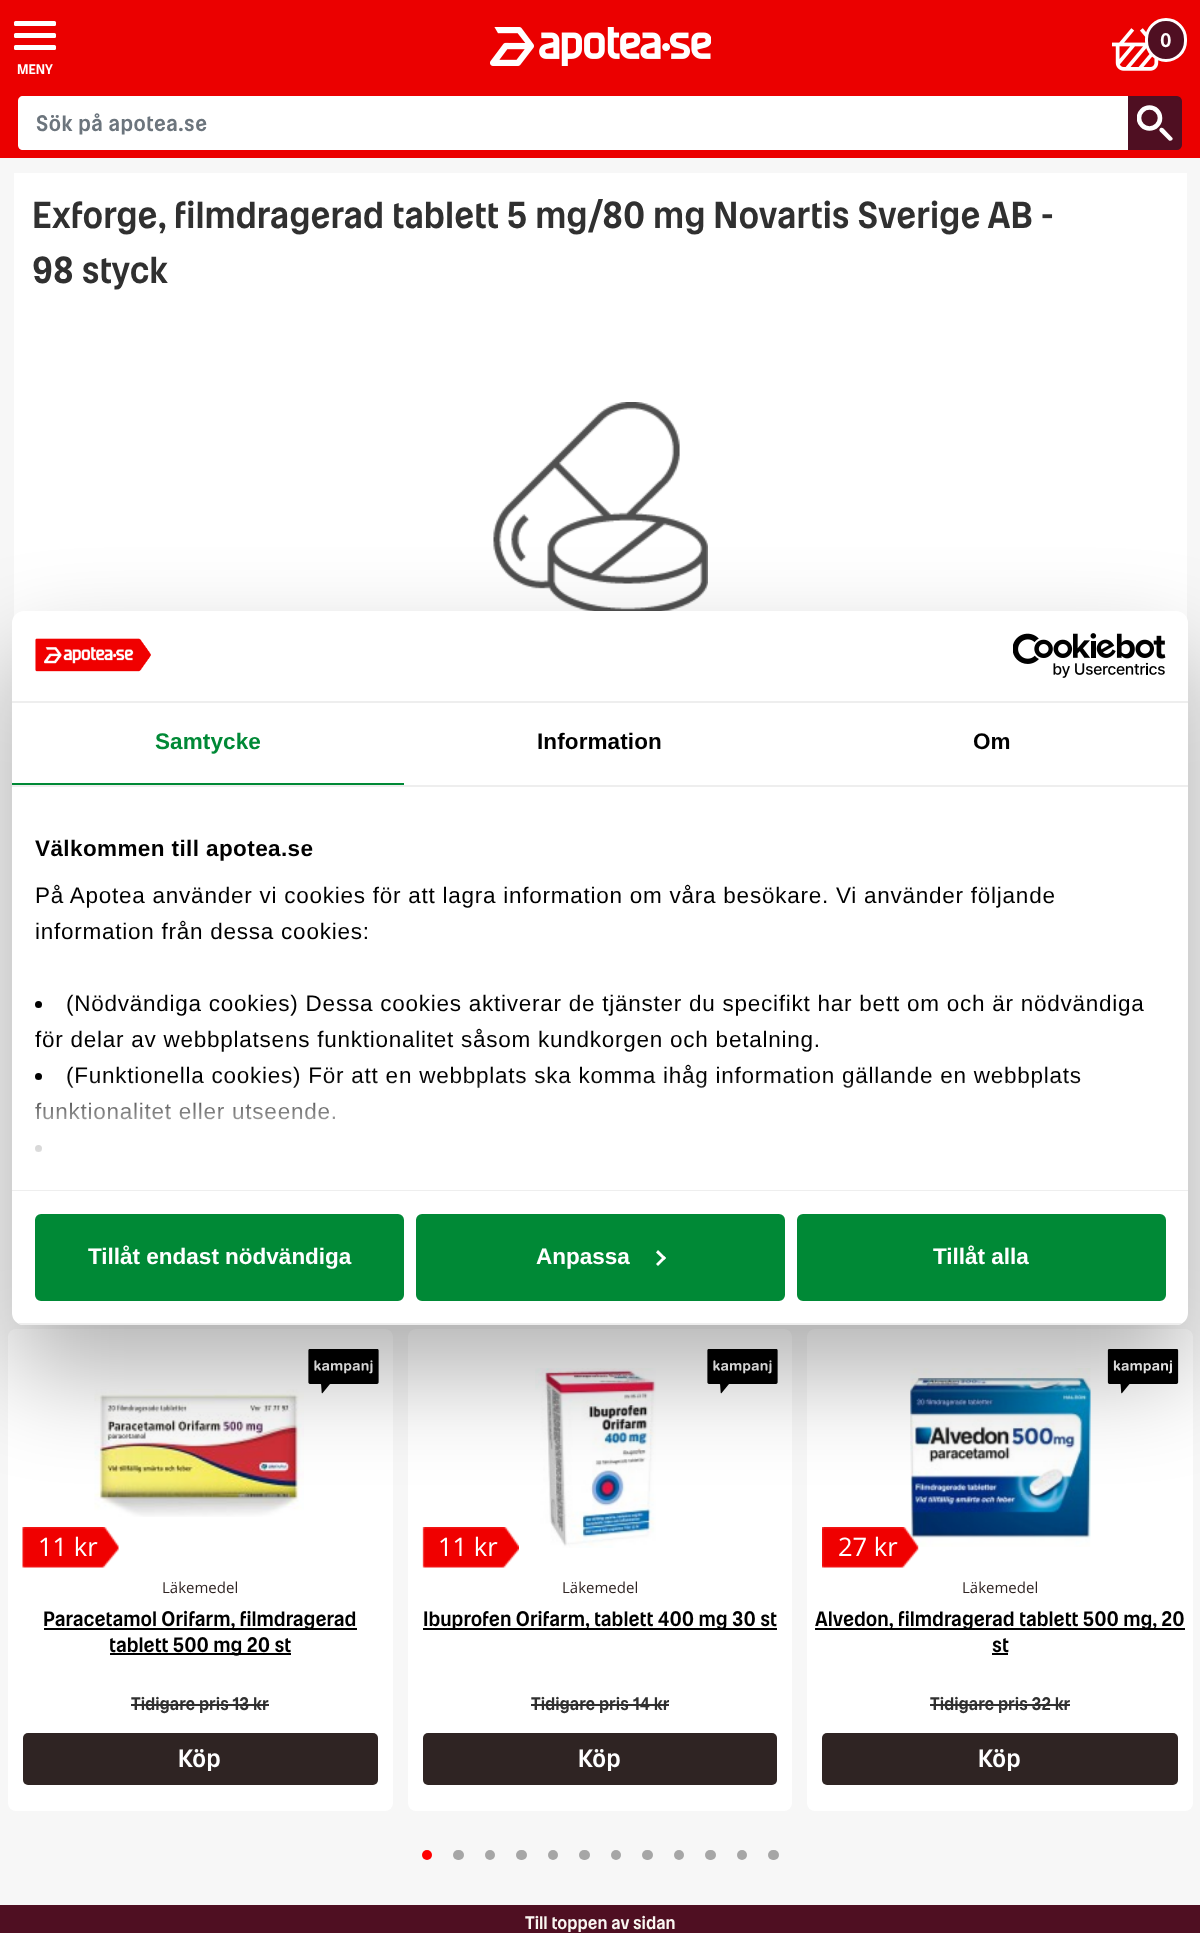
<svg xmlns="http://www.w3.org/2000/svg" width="1200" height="1933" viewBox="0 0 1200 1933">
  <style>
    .t1 { font: 500 21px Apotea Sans; fill: #fff; }
    .t2 { font: 500 15px Apotea Sans; fill: #fff; }
    .t3 { font: 500 24px Apotea Sans; letter-spacing: 0.5px; fill: #6c757d; }
    .t4 { font: 500 40.5px Apotea Sans; fill: #303030; }
    .t5 { font: 25.5px Open Sans; fill: #fff; }
    .t6 { font: 15px Open Sans; fill: #2f2423; }
    .t7 { font: 500 22.5px Apotea Sans; fill: #000; }
    .t8 { font: 500 19.5px Apotea Sans; fill: #303030; }
    .t9 { font: 500 27px Apotea Sans; letter-spacing: 0.5px; fill: #fff; }
    .t10 { font: bold 22.5px Liberation Sans; letter-spacing: 0.1px; fill: #008936; }
    .t11 { font: bold 22.5px Liberation Sans; letter-spacing: 0.1px; fill: #000; }
    .t12 { font: bold 22.5px Liberation Sans; letter-spacing: 0.4px; fill: #000; }
    .t13 { font: 22.5px Liberation Sans; letter-spacing: 0.75px; fill: #000; }
    .t14 { font: bold 22.5px Liberation Sans; fill: #fff; }
    .t15 { font: 500 19.5px Apotea Sans; fill: #faf6f1; }
  </style>
  <defs>
    <clipPath id="clip1"><rect x="1137" y="105" width="36" height="36"/></clipPath>
    <linearGradient id="g1" gradientUnits="userSpaceOnUse" x1="590" y1="1190" x2="590" y2="1077"><stop offset="0" stop-color="#fff"/><stop offset="0.5" stop-color="#fff" stop-opacity="0.8"/><stop offset="1" stop-color="#fff" stop-opacity="0"/></linearGradient>
    <clipPath id="clip2"><rect x="12" y="611" width="1176" height="714" rx="12"/></clipPath>
  </defs>
  <rect width="100%" height="100%" fill="#f7f7f7"/>
  <rect x="0" y="0" width="1200" height="158" fill="#eb0000"/>
  <image x="490" y="27" width="221" height="39" href="images/1.png"/>
  <image x="1112" y="28" width="47" height="43" href="images/2.png"/>
  <rect x="1146.5" y="19.5" width="39" height="41" rx="19.5" fill="#4f0f22" stroke="#fff" stroke-width="3"/>
  <text x="1160" y="47" class="t1">0</text>
  <rect x="14" y="21" width="42" height="5" rx="1.5" fill="#fff"/>
  <rect x="14" y="33" width="42" height="5" rx="1.5" fill="#fff"/>
  <rect x="14" y="45" width="42" height="5" rx="1.5" fill="#fff"/>
  <text x="17" y="74" class="t2">MENY</text>
  <path d="M23 96H1130V150H23C20 150 18 148 18 145V101C18 98 20 96 23 96Z" fill="#fff"/>
  <text x="36" y="131" class="t3">Sök på apotea.se</text>
  <path d="M1129 97H1177C1179 97 1181 99 1181 101V145C1181 147 1179 149 1177 149H1129Z" fill="#4f0f22" stroke="#4f0f22" stroke-width="2"/>
  <g clip-path="url(#clip1)">
    <circle cx="1149.5" cy="118" r="10.5" fill="none" stroke="#fff" stroke-width="4.6"/>
  </g>
  <path d="M1160 131.5L1169 140.5C1170.5 141.5 1173.5 140 1172.5 138L1163.5 128.5C1161 126.5 1158 129.5 1160 131.5" fill="#fff"/>
  <rect x="14" y="173" width="1173" height="446" fill="#fff"/>
  <text x="32" y="228" class="t4">Exforge, filmdragerad tablett 5 mg/80 mg Novartis Sverige AB -</text>
  <text x="32" y="283" class="t4">98 styck</text>
  <image x="493" y="402" width="215" height="209" href="images/3.png"/>
  <rect x="8" y="1329" width="385" height="482" rx="8" fill="#fff"/>
  <image x="308" y="1349" width="71" height="45" href="images/4.png"/>
  <image x="94" y="1389" width="210" height="128" href="images/5.png"/>
  <image x="22" y="1527" width="97" height="41" href="images/6.png"/>
  <text x="38" y="1556" class="t5">11 kr</text>
  <text x="162" y="1593" class="t6">Läkemedel</text>
  <rect x="44" y="1628" width="313" height="2" fill="#000"/>
  <text x="43" y="1626" class="t7">Paracetamol Orifarm, filmdragerad</text>
  <rect x="110" y="1653" width="181" height="2" fill="#000"/>
  <text x="109" y="1652" class="t7">tablett 500 mg 20 st</text>
  <text x="131" y="1710" class="t8">Tidigare pris 13 kr</text>
  <rect x="131" y="1704" width="138" height="2" fill="#303030"/>
  <rect x="23" y="1733" width="355" height="52" rx="5" fill="#2f2423"/>
  <text x="178" y="1767" class="t9">Köp</text>
  <rect x="408" y="1329" width="384" height="482" rx="8" fill="#fff"/>
  <image x="422" y="1527" width="97" height="41" href="images/7.png"/>
  <text x="438" y="1556" class="t5">11 kr</text>
  <image x="535" y="1368" width="121" height="180" href="images/8.png"/>
  <image x="707" y="1349" width="71" height="45" href="images/4.png"/>
  <text x="562" y="1593" class="t6">Läkemedel</text>
  <rect x="423" y="1628" width="354" height="2" fill="#000"/>
  <text x="423" y="1626" class="t7">Ibuprofen Orifarm, tablett 400 mg 30 st</text>
  <text x="531" y="1710" class="t8">Tidigare pris</text>
  <rect x="531" y="1704" width="102" height="2" fill="#303030"/>
  <text x="633" y="1710" class="t8">14 kr</text>
  <rect x="633" y="1704" width="36" height="2" fill="#303030"/>
  <rect x="423" y="1733" width="354" height="52" rx="5" fill="#2f2423"/>
  <text x="578" y="1767" class="t9">Köp</text>
  <rect x="807" y="1329" width="386" height="482" rx="8" fill="#fff"/>
  <image x="910" y="1368" width="181" height="179" href="images/10.png"/>
  <image x="822" y="1527" width="97" height="41" href="images/9.png"/>
  <text x="838" y="1556" class="t5">27 kr</text>
  <image x="1107" y="1349" width="72" height="45" href="images/11.png"/>
  <text x="962" y="1593" class="t6">Läkemedel</text>
  <rect x="815" y="1628" width="370" height="2" fill="#000"/>
  <text x="815" y="1626" class="t7">Alvedon, filmdragerad tablett 500 mg, 20</text>
  <text x="992" y="1652" class="t7">st</text>
  <rect x="992" y="1653" width="16" height="2" fill="#000"/>
  <text x="930" y="1710" class="t8">Tidigare pris 32 kr</text>
  <rect x="930" y="1704" width="140" height="2" fill="#303030"/>
  <rect x="822" y="1733" width="356" height="52" rx="5" fill="#2f2423"/>
  <text x="978" y="1767" class="t9">Köp</text>
  <circle cx="427" cy="1855" r="5" fill="#f00"/>
  <rect x="453" y="1850" width="11" height="10" rx="5" fill="#a6a6a6"/>
  <circle cx="490" cy="1855" r="5" fill="#a6a6a6"/>
  <rect x="516" y="1850" width="11" height="10" rx="5" fill="#a6a6a6"/>
  <circle cx="553" cy="1855" r="5" fill="#a6a6a6"/>
  <rect x="579" y="1850" width="11" height="10" rx="5" fill="#a6a6a6"/>
  <circle cx="616" cy="1855" r="5" fill="#a6a6a6"/>
  <rect x="642" y="1850" width="11" height="10" rx="5" fill="#a6a6a6"/>
  <circle cx="679" cy="1855" r="5" fill="#a6a6a6"/>
  <rect x="705" y="1850" width="11" height="10" rx="5" fill="#a6a6a6"/>
  <circle cx="742" cy="1855" r="5" fill="#a6a6a6"/>
  <rect x="768" y="1850" width="11" height="10" rx="5" fill="#a6a6a6"/>
  <rect x="12" y="659" width="1176" height="714" rx="12" fill="#0000004d" filter="blur(51px)"/>
  <rect x="12" y="611" width="1176" height="714" rx="12" fill="#fff"/>
  <rect x="12" y="701" width="1176" height="2" fill="#eee"/>
  <image x="35" y="638" width="116" height="34" href="images/12.png"/>
  <image x="1013" y="633" width="153" height="45" href="images/13.png"/>
  <rect x="12" y="785" width="1176" height="2" fill="#eee"/>
  <rect x="12" y="783" width="392" height="2" fill="#008936"/>
  <text x="155" y="749" class="t10">Samtycke</text>
  <text x="537" y="749" class="t11">Information</text>
  <text x="973" y="749" class="t11">Om</text>
  <rect x="12" y="1190" width="1176" height="1" fill="#eee"/>
  <text x="35" y="856" class="t12">Välkommen till apotea.se</text>
  <text x="35" y="903" class="t13">På Apotea använder vi cookies för att lagra information om våra besökare. Vi använder följande</text>
  <text x="35" y="939" class="t13">information från dessa cookies:</text>
  <circle cx="38.5" cy="1004.5" r="3.5" fill="#000"/>
  <text x="66" y="1011" class="t13">(Nödvändiga cookies) Dessa cookies aktiverar de tjänster du specifikt har bett om och är nödvändiga</text>
  <text x="35" y="1047" class="t13">för delar av webbplatsens funktionalitet såsom kundkorgen och betalning.</text>
  <circle cx="38.5" cy="1076.5" r="3.5" fill="#000"/>
  <text x="66" y="1083" class="t13">(Funktionella cookies) För att en webbplats ska komma ihåg information gällande en webbplats</text>
  <text x="35" y="1119" class="t13">funktionalitet eller utseende.</text>
  <circle cx="38.5" cy="1148.5" r="3.5" fill="#000"/>
  <rect x="34" y="1079" width="1046" height="73" fill="url(#g1)"/>
  <g clip-path="url(#clip2)">
    <rect x="12" y="1323" width="1176" height="2" fill="#eee"/>
  </g>
  <rect x="36.5" y="1215.5" width="366" height="84" rx="4.5" fill="#008936" stroke="#008936" stroke-width="3"/>
  <text x="88" y="1264" class="t14">Tillåt endast nödvändiga</text>
  <rect x="417.5" y="1215.5" width="366" height="84" rx="4.5" fill="#008936" stroke="#008936" stroke-width="3"/>
  <text x="536" y="1264" class="t14">Anpassa</text>
  <path d="M658 1250L666 1258L664 1260L656 1252.5Z" fill="#fff"/>
  <path d="M664 1256L666 1258L658 1266L656 1264Z" fill="#fff"/>
  <rect x="798.5" y="1215.5" width="366" height="84" rx="4.5" fill="#008936" stroke="#008936" stroke-width="3"/>
  <text x="933" y="1264" class="t14">Tillåt alla</text>
  <rect x="0" y="1905" width="1200" height="28" fill="#4f0f22"/>
  <text x="525" y="1929" class="t15">Till toppen av sidan</text>
</svg>
